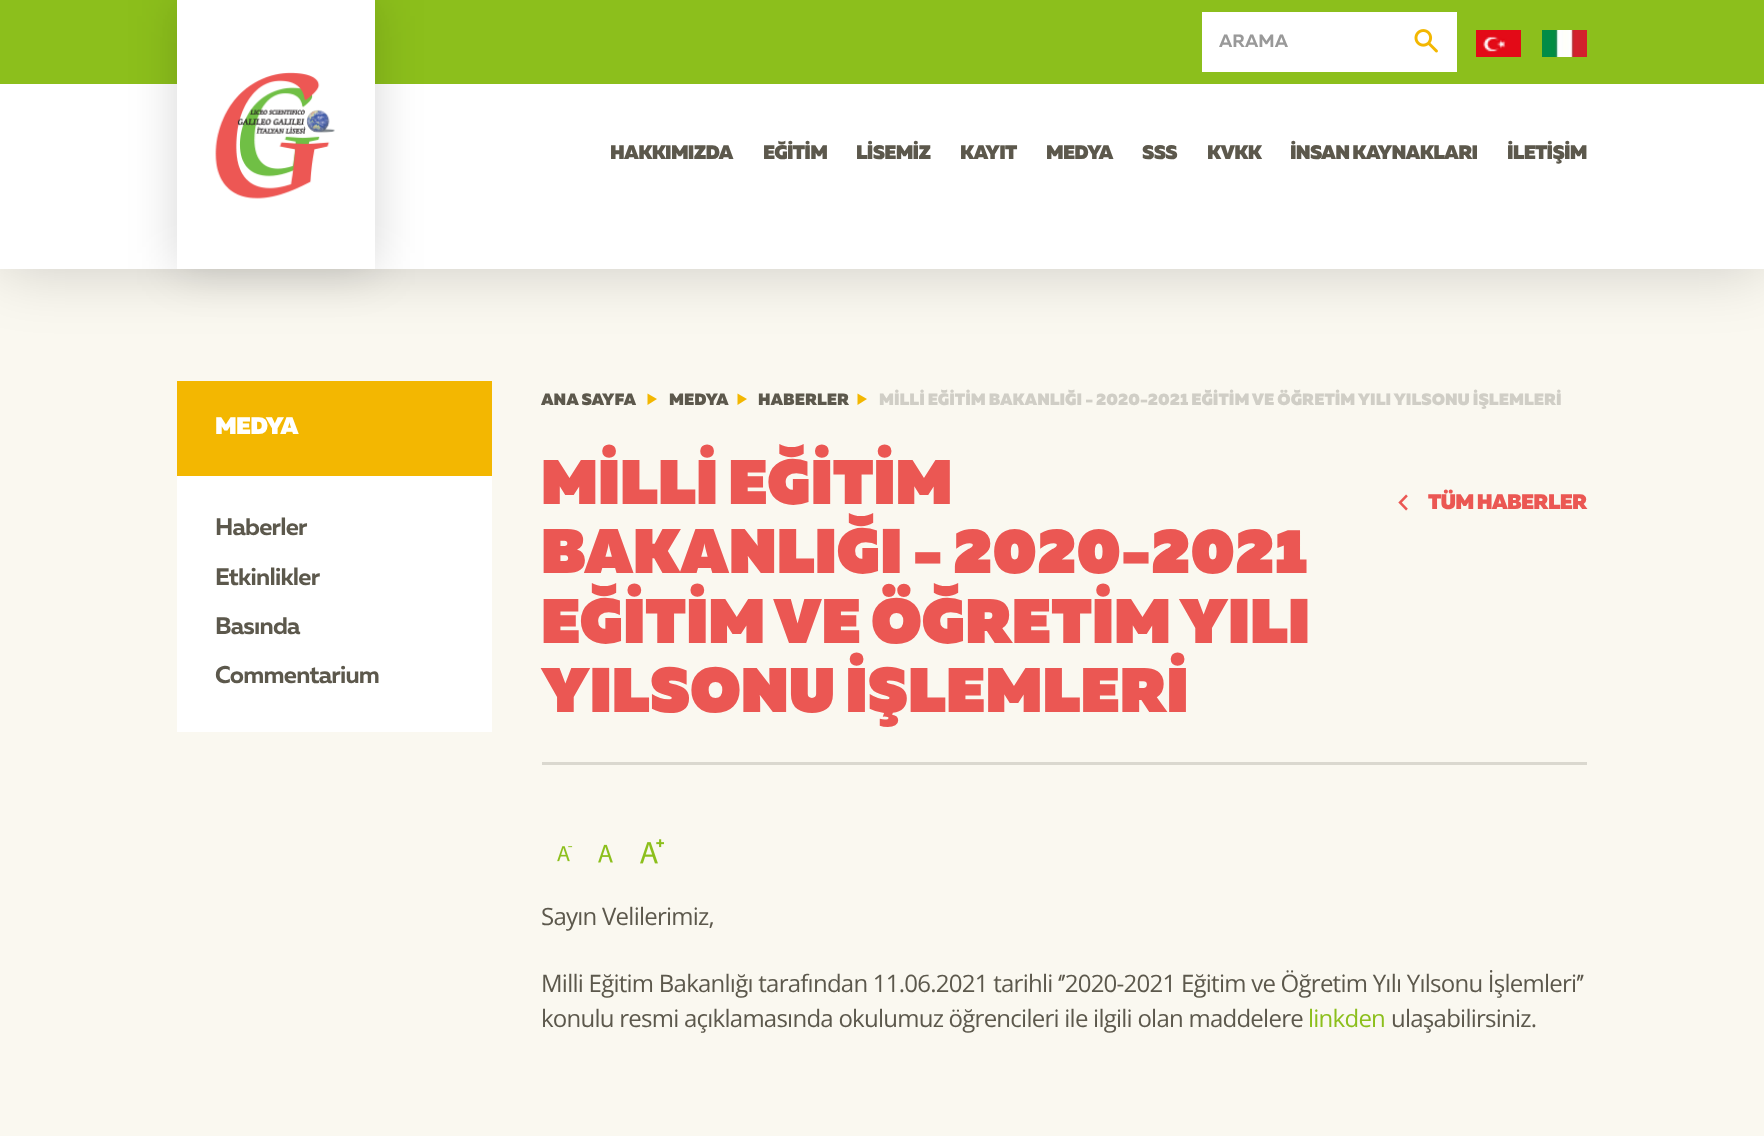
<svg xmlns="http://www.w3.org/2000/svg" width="1764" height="1136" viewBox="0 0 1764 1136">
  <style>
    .t1 { font: bold 18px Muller; fill: #999; }
    .t2 { font: 900 19.5px Muller; letter-spacing: -0.75px; fill: #5c584c; }
    .t3 { font: 900 24px Muller; letter-spacing: -0.75px; fill: #fff; }
    .t4 { font: bold 24px Muller; letter-spacing: -0.75px; fill: #5c584c; }
    .t5 { font: 900 16.5px Muller; fill: #5c584c; }
    .t6 { font: 900 16.5px Muller; fill: #d0cec6; }
    .t7 { font: 900 63px 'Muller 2'; fill: #eb5753; }
    .t8 { font: 900 21px Muller; letter-spacing: -0.75px; fill: #eb5753; }
    .t9 { font: 24px Open Sans; letter-spacing: -0.75px; fill: #5c584c; }
    .t10 { font: 24px Open Sans; letter-spacing: -0.75px; fill: #8cbf1c; }
  </style>
  <rect width="100%" height="100%" fill="#faf8f0"/>
  <rect x="0" y="0" width="1764" height="269" fill="#0000002e" filter="blur(31.5px)"/>
  <rect x="0" y="84" width="1764" height="185" fill="#fff"/>
  <rect x="0" y="0" width="1764" height="84" fill="#8cbf1c"/>
  <rect x="1202" y="12" width="255" height="60" fill="#fff"/>
  <text x="1219" y="47" class="t1">ARAMA</text>
  <image x="1414" y="29" width="24" height="24" href="images/1.png"/>
  <image x="1476" y="30" width="45" height="27" href="images/2.png"/>
  <image x="1542" y="30" width="45" height="27" href="images/3.png"/>
  <rect x="177" y="0" width="198" height="269" fill="#00000029" filter="blur(24px)"/>
  <rect x="177" y="0" width="198" height="269" fill="#fff"/>
  <image x="215" y="72" width="120" height="127" href="images/4.png"/>
  <text x="610" y="159" class="t2">HAKKIMIZDA</text>
  <text x="763" y="159" class="t2">EĞİTİM</text>
  <text x="856" y="159" class="t2">LİSEMİZ</text>
  <text x="960" y="159" class="t2">KAYIT</text>
  <text x="1046" y="159" class="t2">MEDYA</text>
  <text x="1142" y="159" class="t2">SSS</text>
  <text x="1207" y="159" class="t2">KVKK</text>
  <text x="1290" y="159" class="t2">İNSAN KAYNAKLARI</text>
  <text x="1507" y="159" class="t2">İLETİŞİM</text>
  <rect x="177" y="381" width="315" height="95" fill="#f3b701"/>
  <text x="215" y="434" class="t3">MEDYA</text>
  <rect x="177" y="476" width="315" height="256" fill="#fff"/>
  <text x="215" y="535" class="t4">Haberler</text>
  <text x="215" y="585" class="t4">Etkinlikler</text>
  <text x="215" y="634" class="t4">Basında</text>
  <text x="215" y="683" class="t4">Commentarium</text>
  <text x="541" y="405" class="t5">ANA SAYFA</text>
  <path d="M647.5 393.5V405L657 399Z" fill="#f3b701"/>
  <text x="669" y="405" class="t5">MEDYA</text>
  <path d="M737.5 393.5V405L747 399Z" fill="#f3b701"/>
  <text x="758" y="405" class="t5">HABERLER</text>
  <path d="M857.5 393.5V405L867 399Z" fill="#f3b701"/>
  <text x="879" y="405" class="t6">MİLLİ EĞİTİM BAKANLIĞI - 2020-2021 EĞİTİM VE ÖĞRETİM YILI YILSONU İŞLEMLERİ</text>
  <rect x="542" y="762" width="1045" height="3" fill="#dad8cf"/>
  <text x="541" y="504" class="t7">MİLLİ EĞİTİM</text>
  <text x="541" y="573" class="t7">BAKANLIĞI - 2020-2021</text>
  <text x="541" y="643" class="t7">EĞİTİM VE ÖĞRETİM YILI</text>
  <text x="541" y="712" class="t7">YILSONU İŞLEMLERİ</text>
  <image x="1398" y="494" width="10" height="17" href="images/5.png"/>
  <text x="1428" y="509" class="t8">TÜM HABERLER</text>
  <image x="557" y="846" width="16" height="16" href="images/6.png"/>
  <image x="598" y="844" width="15" height="19" href="images/7.png"/>
  <image x="640" y="839" width="24" height="25" href="images/8.png"/>
  <text x="541" y="925" class="t9">Sayın Velilerimiz,</text>
  <text x="541" y="992" class="t9">Milli Eğitim Bakanlığı tarafından 11.06.2021 tarihli ‘’2020-2021 Eğitim ve Öğretim Yılı Yılsonu İşlemleri’’</text>
  <text x="541" y="1027" class="t9">konulu resmi açıklamasında okulumuz öğrencileri ile ilgili olan maddelere</text>
  <text x="1308" y="1027" class="t10">linkden</text>
  <text x="1391" y="1027" class="t9">ulaşabilirsiniz.</text>
</svg>
